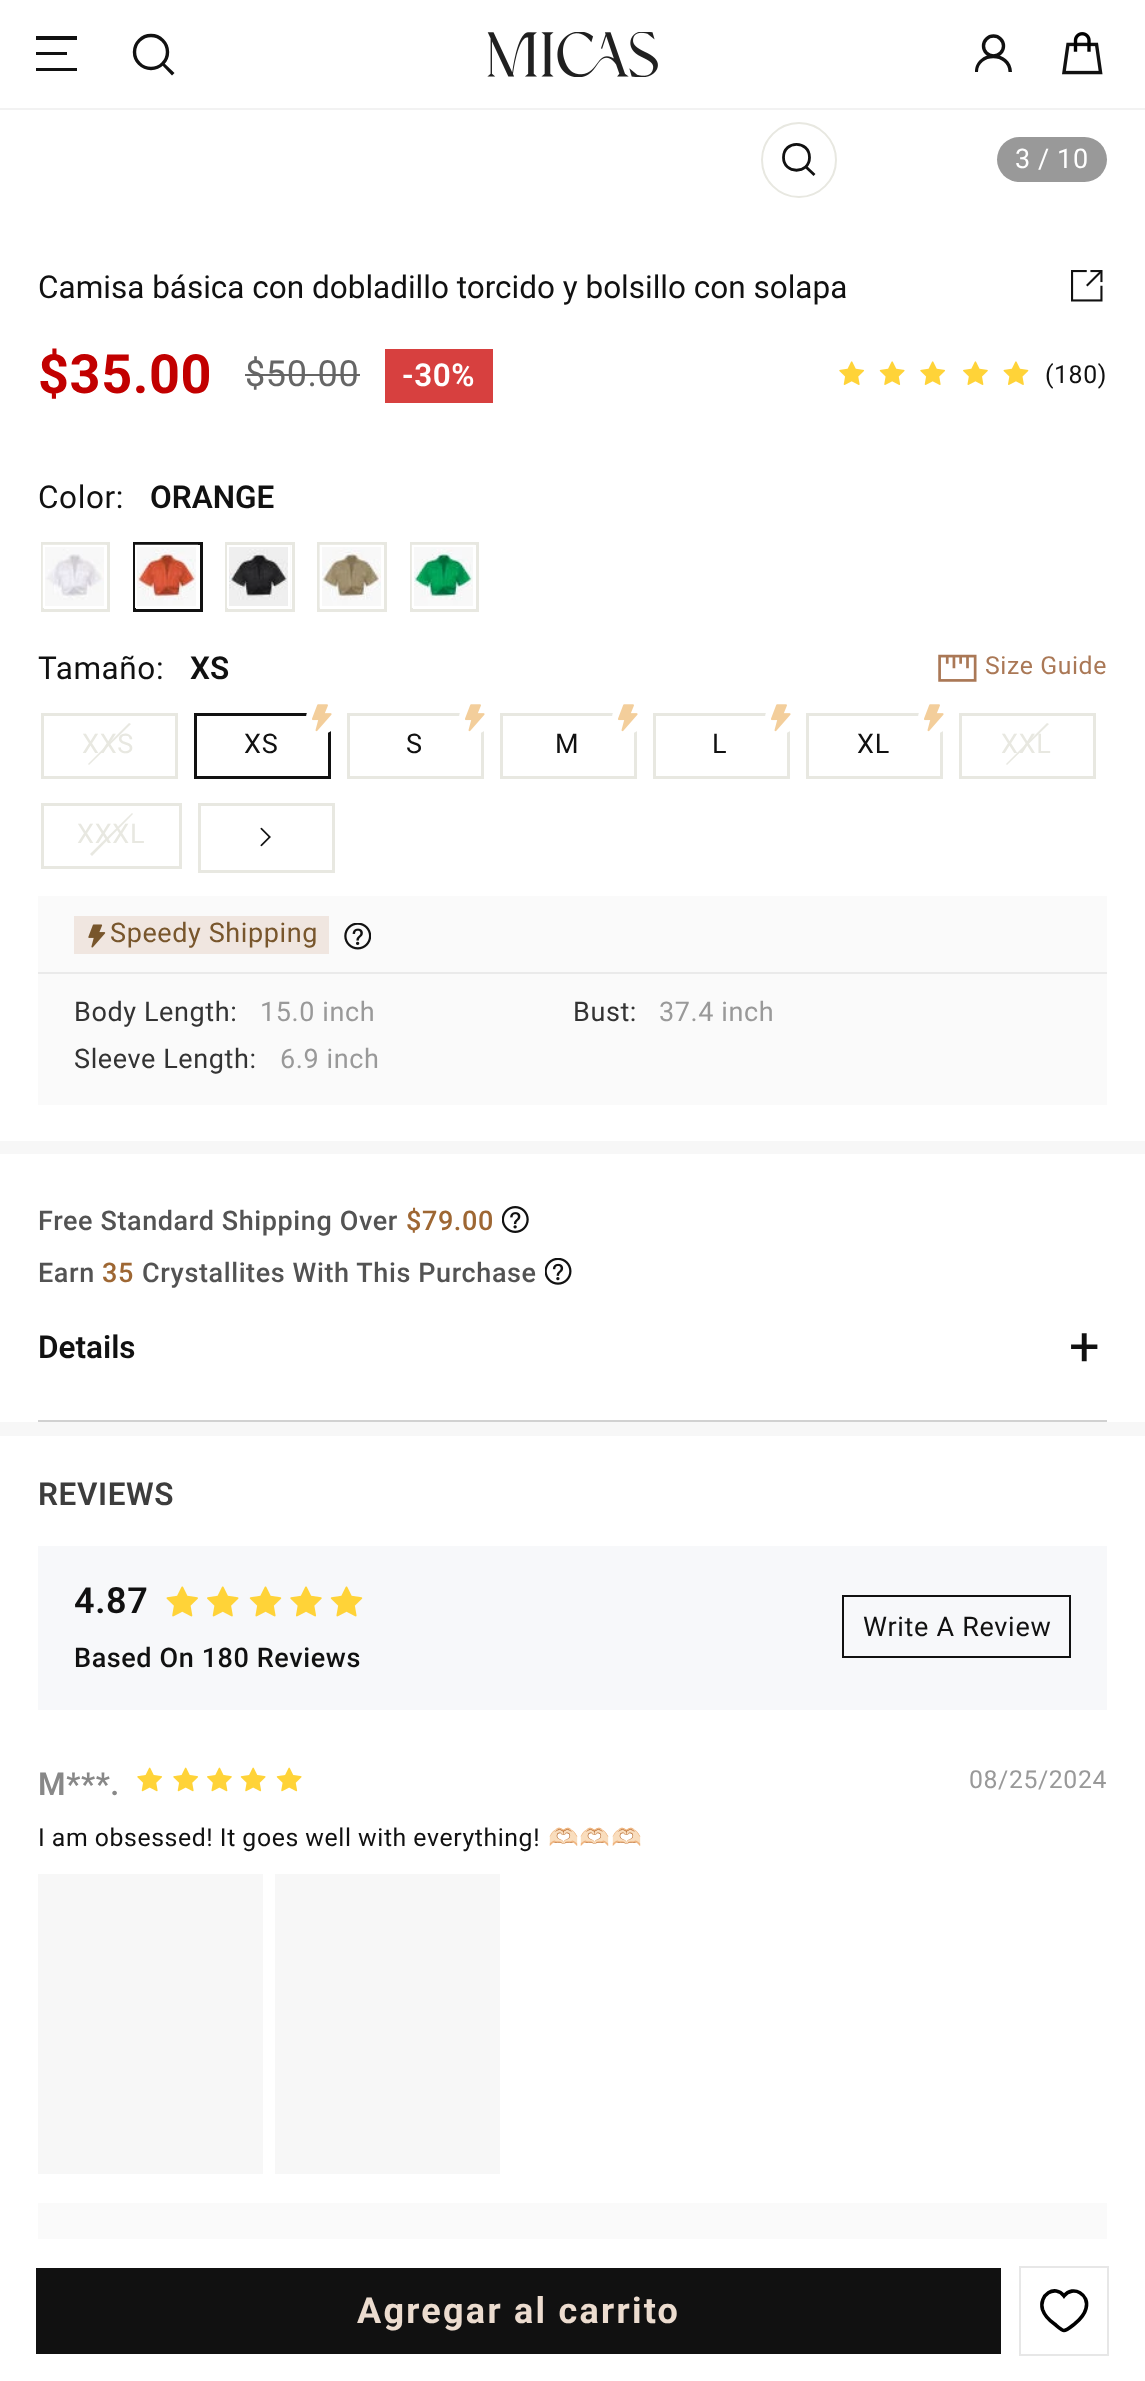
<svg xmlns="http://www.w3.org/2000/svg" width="1145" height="2381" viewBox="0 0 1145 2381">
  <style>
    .t1 { font: 27px Roboto; letter-spacing: 0.6px; fill: #fff; }
    .t2 { font: 31.5px Roboto; fill: #111; }
    .t3 { font: bold 54px Roboto; letter-spacing: 0.6px; fill: #c20000; }
    .t4 { font: 36px Roboto; letter-spacing: 0.6px; fill: #666; }
    .t5 { font: 600 31.5px Roboto; letter-spacing: 0.6px; fill: #fff; }
    .t6 { font: 24.8px Roboto; letter-spacing: 0.6px; fill: #111; }
    .t7 { font: 31.5px Roboto; letter-spacing: 0.6px; fill: #111; }
    .t8 { font: 600 31.5px Roboto; fill: #111; }
    .t9 { font: 24.8px Roboto; letter-spacing: 0.6px; fill: #aa7856; }
    .t10 { font: 27px Roboto; letter-spacing: 0.7px; fill: #e8e8e1; }
    .t11 { font: 27px Roboto; letter-spacing: 0.7px; fill: #111; }
    .t12 { font: 27px Roboto; letter-spacing: 0.6px; fill: #78562c; }
    .t13 { font: 27px Roboto; letter-spacing: 0.6px; fill: #333; }
    .t14 { font: 27px Roboto; letter-spacing: 0.6px; fill: #999; }
    .t15 { font: 500 27px Roboto; letter-spacing: 0.6px; fill: #535353; }
    .t16 { font: 500 27px Roboto; letter-spacing: 0.6px; fill: #9e6733; }
    .t17 { font: 54px Roboto; fill: #111; }
    .t18 { font: bold 36px Roboto; letter-spacing: 2.25px; fill: #ecdccf; }
    .t19 { font: 600 31.5px Roboto; letter-spacing: 0.6px; fill: #3d3d3d; }
    .t20 { font: 600 36px Roboto; letter-spacing: 0.6px; fill: #111; }
    .t21 { font: 500 27px Roboto; letter-spacing: 0.6px; fill: #111; }
    .t22 { font: 600 31.5px Roboto; letter-spacing: 0.6px; fill: #888; }
    .t23 { font: 24.8px Roboto; letter-spacing: 0.6px; fill: #999; }
    .t24 { font: 24.8px Noto Color Emoji; letter-spacing: 0.6px; fill: #111; }
  </style>
  <rect width="100%" height="100%" fill="#fff"/>
  <rect x="36" y="36" width="41" height="4" fill="#111"/>
  <rect x="36" y="52" width="31" height="3" fill="#111"/>
  <rect x="36" y="68" width="41" height="3" fill="#111"/>
  <circle cx="151" cy="52" r="16.5" fill="none" stroke="#111" stroke-width="3.4"/>
  <path d="M172 75.5L161 64L163 62L174.5 73Z" fill="#111" fill-rule="evenodd"/>
  <image x="487" y="32" width="171" height="45" href="images/1.png"/>
  <circle cx="993.5" cy="46" r="10" fill="none" stroke="#111" stroke-width="3.4"/>
  <path d="M980.5 59.5C976.5 63 975 67 975 72H978C978 53.5 1008.5 53.5 1008.5 72H1012C1012 56 991.5 49 980.5 59.5Z" fill="#111" fill-rule="evenodd"/>
  <image x="1062" y="32" width="41" height="43" href="images/2.png"/>
  <rect x="0" y="108" width="1145" height="2" fill="#f2f2f2"/>
  <circle cx="799" cy="160" r="37" fill="none" stroke="#e8e8e1" stroke-width="2"/>
  <path d="M809.5 157.5C809.5 174.5 783.5 174.5 783.5 157.5C783.5 140 809.5 140 809.5 157.5ZM814.5 175L806 167" fill="none" stroke="#111" stroke-width="2.8"/>
  <rect x="997" y="137" width="110" height="45" rx="22.5" fill="#999"/>
  <text x="1015" y="168" class="t1">3 / 10</text>
  <text x="38" y="298" class="t2">Camisa básica con dobladillo torcido y bolsillo con solapa</text>
  <image x="1071" y="270" width="32" height="32" href="images/3.png"/>
  <text x="38" y="393" class="t3">$35.00</text>
  <text x="245" y="386" class="t4">$50.00</text>
  <rect x="245" y="374" width="115" height="2" fill="#666"/>
  <rect x="385" y="349" width="108" height="54" fill="#d7403f"/>
  <text x="402" y="386" class="t5">-30%</text>
  <image x="839" y="361" width="26" height="24" href="images/4.png"/>
  <image x="879" y="361" width="26" height="24" href="images/5.png"/>
  <image x="920" y="361" width="26" height="24" href="images/4.png"/>
  <image x="963" y="361" width="25" height="24" href="images/6.png"/>
  <image x="1003" y="361" width="26" height="24" href="images/7.png"/>
  <text x="1045" y="383" class="t6">(180)</text>
  <text x="38" y="508" class="t7">Color:</text>
  <text x="150" y="508" class="t8">ORANGE</text>
  <rect x="42.5" y="543.5" width="66" height="67" fill="none" stroke="#e8e8e1" stroke-width="3"/>
  <image x="42" y="544" width="64" height="64" href="images/8.png"/>
  <rect x="44" y="546" width="61" height="61" fill="none" stroke="#fff" stroke-width="2"/>
  <rect x="134.5" y="543.5" width="67" height="67" fill="none" stroke="#111" stroke-width="3"/>
  <image x="135" y="544" width="63" height="62" href="images/9.png"/>
  <rect x="136" y="546" width="61" height="61" fill="none" stroke="#fff" stroke-width="2"/>
  <rect x="226.5" y="543.5" width="67" height="67" fill="none" stroke="#e8e8e1" stroke-width="3"/>
  <image x="229" y="545" width="62" height="63" href="images/10.png"/>
  <rect x="228" y="546" width="61" height="61" fill="none" stroke="#fff" stroke-width="2"/>
  <rect x="318.5" y="543.5" width="67" height="67" fill="none" stroke="#e8e8e1" stroke-width="3"/>
  <image x="319" y="544" width="64" height="64" href="images/11.png"/>
  <rect x="321" y="546" width="61" height="61" fill="none" stroke="#fff" stroke-width="2"/>
  <rect x="411.5" y="543.5" width="66" height="67" fill="none" stroke="#e8e8e1" stroke-width="3"/>
  <image x="411" y="544" width="64" height="64" href="images/12.png"/>
  <rect x="413" y="546" width="61" height="61" fill="none" stroke="#fff" stroke-width="2"/>
  <text x="38" y="679" class="t7">Tamaño:</text>
  <text x="190" y="679" class="t8">XS</text>
  <image x="938" y="654" width="39" height="28" href="images/13.png"/>
  <text x="985" y="674" class="t9">Size Guide</text>
  <rect x="42.5" y="714.5" width="134" height="63" fill="none" stroke="#e8e8e1" stroke-width="3"/>
  <path d="M129 723L131 724L89 765L88 764Z" fill="#e8e8e1"/>
  <text x="82" y="753" class="t10">XXS</text>
  <rect x="195.5" y="714.5" width="134" height="63" fill="none" stroke="#111" stroke-width="3"/>
  <circle cx="322" cy="718" r="16" fill="#fff"/>
  <image x="312" y="704" width="20" height="28" href="images/14.png"/>
  <text x="244" y="753" class="t11">XS</text>
  <rect x="348.5" y="714.5" width="134" height="63" fill="none" stroke="#e8e8e1" stroke-width="3"/>
  <circle cx="475" cy="718" r="16" fill="#fff"/>
  <image x="465" y="704" width="20" height="28" href="images/15.png"/>
  <text x="406" y="753" class="t11">S</text>
  <rect x="501.5" y="714.5" width="134" height="63" fill="none" stroke="#e8e8e1" stroke-width="3"/>
  <circle cx="628" cy="718" r="16" fill="#fff"/>
  <image x="618" y="704" width="20" height="28" href="images/15.png"/>
  <text x="555" y="753" class="t11">M</text>
  <rect x="654.5" y="714.5" width="134" height="63" fill="none" stroke="#e8e8e1" stroke-width="3"/>
  <circle cx="781" cy="718" r="16" fill="#fff"/>
  <image x="771" y="704" width="20" height="28" href="images/15.png"/>
  <text x="712" y="753" class="t11">L</text>
  <rect x="807.5" y="714.5" width="134" height="63" fill="none" stroke="#e8e8e1" stroke-width="3"/>
  <circle cx="934" cy="718" r="16" fill="#fff"/>
  <image x="924" y="704" width="20" height="28" href="images/15.png"/>
  <text x="857" y="753" class="t11">XL</text>
  <rect x="960.5" y="714.5" width="134" height="63" fill="none" stroke="#e8e8e1" stroke-width="3"/>
  <path d="M1047 723L1049 724L1007 765L1006 764Z" fill="#e8e8e1"/>
  <text x="1001" y="753" class="t10">XXL</text>
  <rect x="42.5" y="804.5" width="138" height="63" fill="none" stroke="#e8e8e1" stroke-width="3"/>
  <path d="M132 813L133 814L92 856L90 854Z" fill="#e8e8e1"/>
  <text x="77" y="843" class="t10">XXXL</text>
  <rect x="199.5" y="804.5" width="134" height="67" fill="none" stroke="#e8e8e1" stroke-width="3"/>
  <image x="260" y="827" width="11" height="20" href="images/16.png"/>
  <rect x="38" y="896" width="1069" height="76" fill="#fafafa"/>
  <rect x="38" y="972" width="1069" height="2" fill="#eaeaea"/>
  <rect x="74" y="916" width="255" height="38" fill="#f0e6e0"/>
  <image x="88" y="924" width="18" height="24" href="images/17.png"/>
  <text x="110" y="942" class="t12">Speedy Shipping</text>
  <image x="344" y="923" width="27" height="27" href="images/18.png"/>
  <rect x="38" y="974" width="1069" height="131" fill="#fafafa"/>
  <text x="74" y="1021" class="t13">Body Length:</text>
  <text x="260" y="1021" class="t14">15.0 inch</text>
  <text x="573" y="1021" class="t13">Bust:</text>
  <text x="659" y="1021" class="t14">37.4 inch</text>
  <text x="74" y="1068" class="t13">Sleeve Length:</text>
  <text x="280" y="1068" class="t14">6.9 inch</text>
  <rect x="0" y="1141" width="1145" height="13" fill="#f7f7f7"/>
  <text x="38" y="1230" class="t15">Free Standard Shipping Over</text>
  <text x="406" y="1230" class="t16">$79.00</text>
  <image x="502" y="1206" width="27" height="27" href="images/19.png"/>
  <text x="38" y="1282" class="t15">Earn</text>
  <text x="102" y="1282" class="t16">35</text>
  <text x="142" y="1282" class="t15">Crystallites With This Purchase</text>
  <image x="545" y="1258" width="27" height="27" href="images/20.png"/>
  <rect x="38" y="1420" width="1069" height="2" fill="#d1d1d1"/>
  <text x="38" y="1358" class="t8">Details</text>
  <text x="1069" y="1365" class="t17">+</text>
  <rect x="36" y="2268" width="965" height="86" fill="#111"/>
  <text x="357" y="2323" class="t18">Agregar al carrito</text>
  <rect x="1020" y="2267" width="88" height="88" fill="none" stroke="#e7e7e7" stroke-width="2"/>
  <path d="M1064 2330.5C1061.5 2330.5 1056.5 2325.5 1054.5 2324C1049.5 2320.5 1044.5 2315.5 1042.5 2309.5C1038.5 2295 1055 2284 1064 2296C1073 2284.5 1090 2294.5 1086 2308.5C1084.5 2314.5 1079.5 2320 1074.5 2324C1073 2325 1067 2330.5 1064 2330.5Z" fill="none" stroke="#000" stroke-width="3.6"/>
  <rect x="0" y="1422" width="1145" height="14" fill="#f7f7f7"/>
  <text x="38" y="1505" class="t19">REVIEWS</text>
  <rect x="38" y="1546" width="1069" height="164" fill="#f7f8fa"/>
  <text x="74" y="1613" class="t20">4.87</text>
  <image x="166" y="1586" width="32" height="31" href="images/21.png"/>
  <image x="207" y="1586" width="32" height="31" href="images/22.png"/>
  <image x="249" y="1586" width="33" height="31" href="images/23.png"/>
  <image x="290" y="1586" width="32" height="31" href="images/24.png"/>
  <image x="330" y="1586" width="33" height="31" href="images/23.png"/>
  <text x="74" y="1667" class="t21">Based On 180 Reviews</text>
  <rect x="843" y="1596" width="227" height="61" fill="none" stroke="#111" stroke-width="2"/>
  <text x="863" y="1636" class="t11">Write A Review</text>
  <text x="38" y="1795" class="t22">M***.</text>
  <image x="137" y="1767" width="26" height="25" href="images/25.png"/>
  <image x="173" y="1767" width="26" height="25" href="images/25.png"/>
  <image x="207" y="1767" width="25" height="25" href="images/26.png"/>
  <image x="240" y="1767" width="26" height="25" href="images/27.png"/>
  <image x="276" y="1767" width="26" height="25" href="images/27.png"/>
  <text x="969" y="1788" class="t23">08/25/2024</text>
  <text x="38" y="1846" word-spacing="-0.25" class="t6">I am obsessed! It goes well with everything!</text>
  <text x="548" y="1846" class="t24">🫶🏻🫶🏻🫶🏻</text>
  <rect x="38" y="1874" width="225" height="300" fill="#f7f7f7"/>
  <rect x="275" y="1874" width="225" height="300" fill="#f7f7f7"/>
  <rect x="38" y="2203" width="1069" height="36" fill="#fafafa"/>
</svg>
